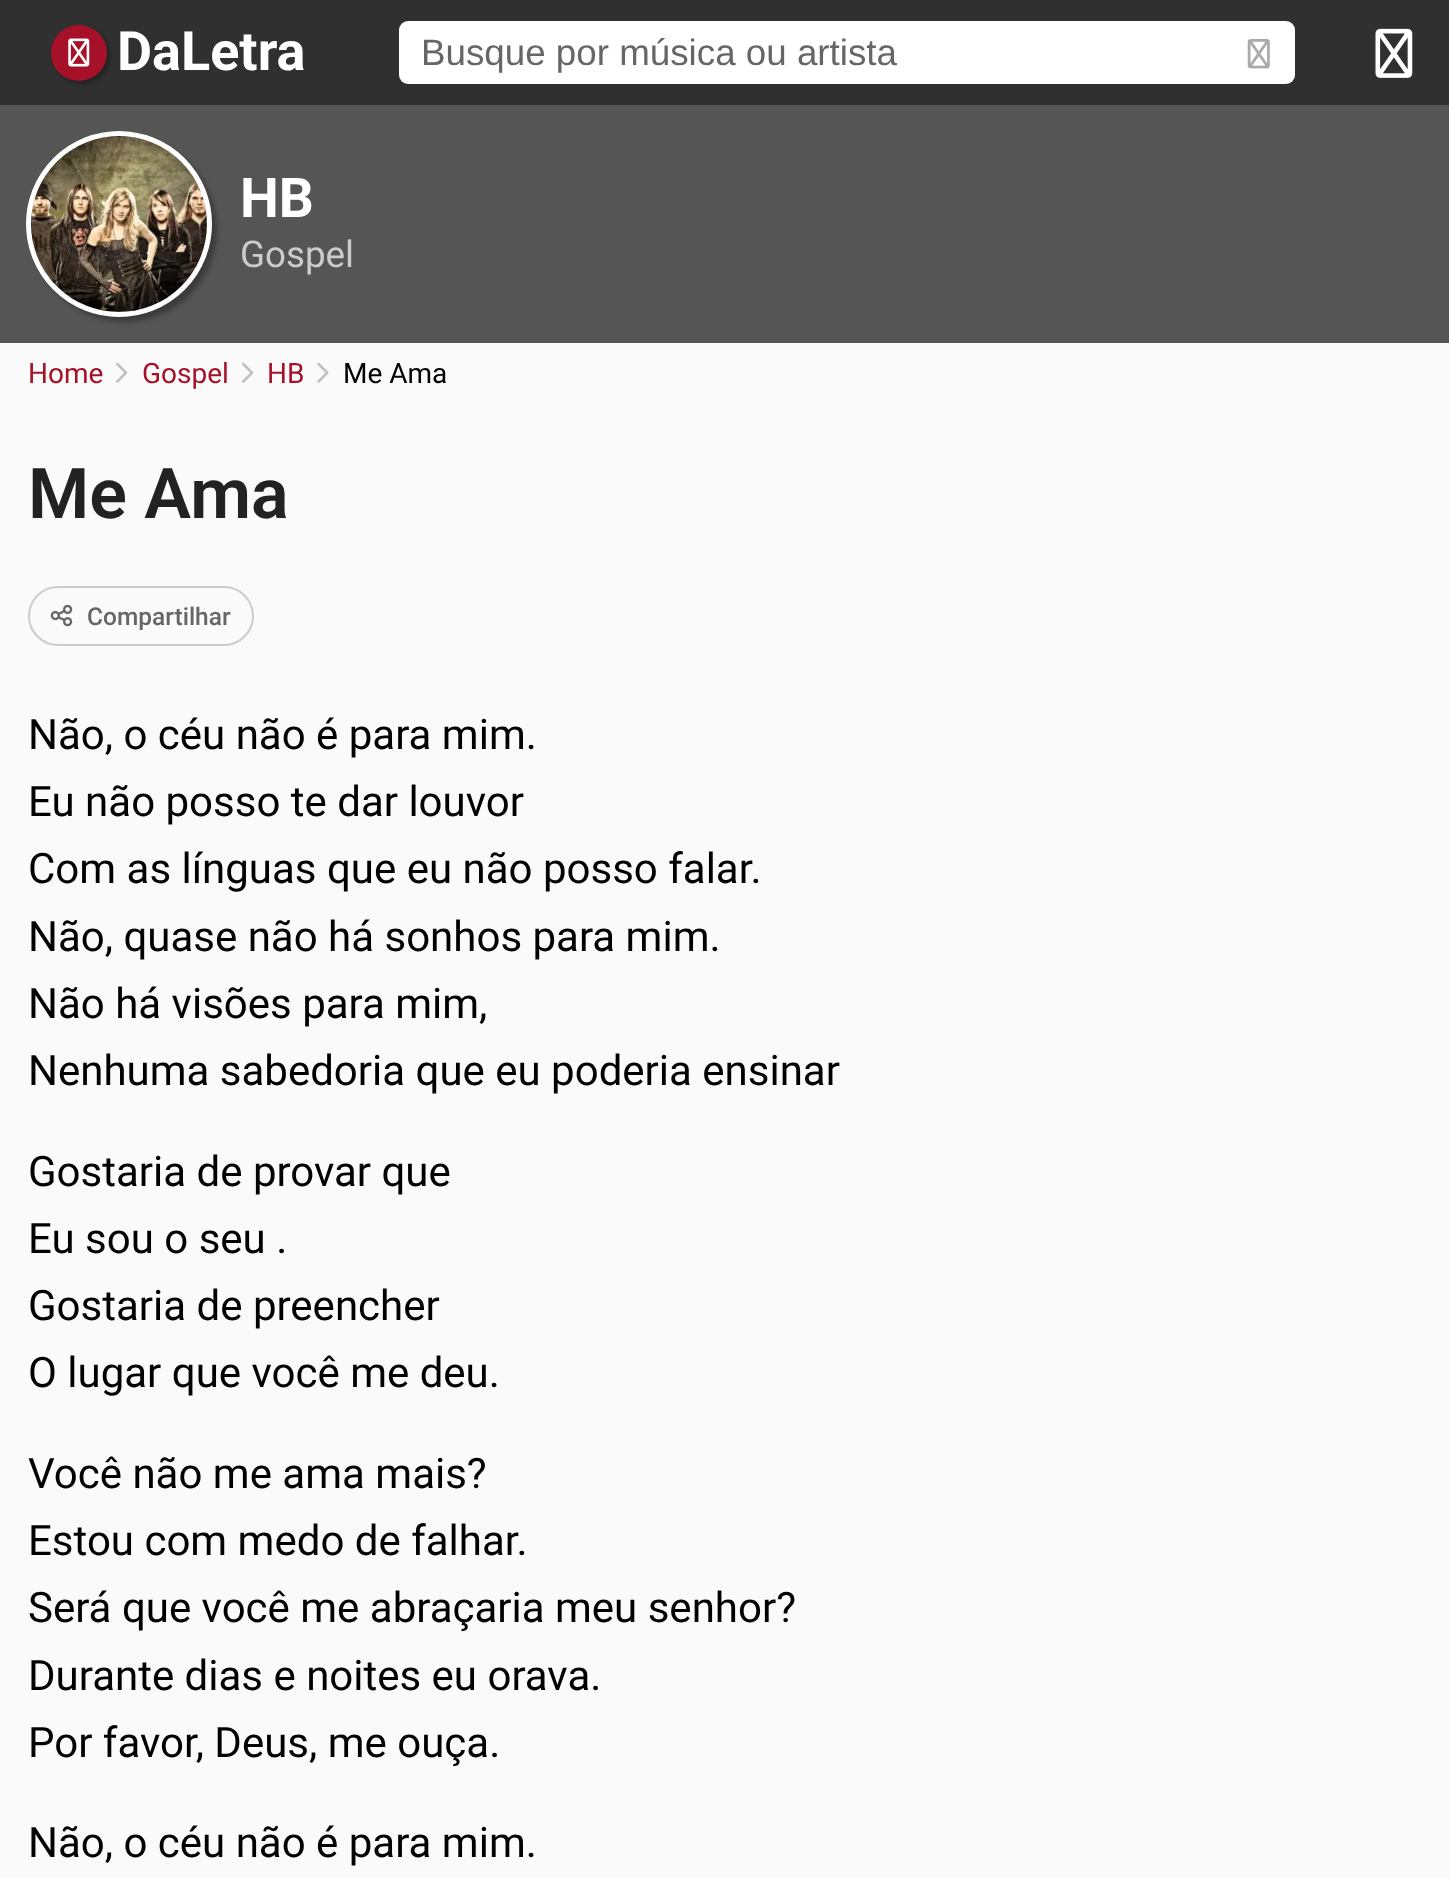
<svg xmlns="http://www.w3.org/2000/svg" width="1449" height="1878" viewBox="0 0 1449 1878">
  <style>
    .t1 { font: bold 54px Roboto; fill: #fff; }
    .t2 { font: 36.75px Liberation Sans; fill: #666; }
    .t3 { font: bold 55px Roboto; fill: #fff; }
    .t4 { font: 36.75px Roboto; fill: #ccc; }
    .t5 { font: 28px Roboto; fill: #a6112a; }
    .t6 { font: 28px Roboto; fill: #000; }
    .t7 { font: 600 70px Roboto; fill: #222; }
    .t8 { font: 500 24.5px Roboto; fill: #666; }
    .t9 { font: 42px Roboto; fill: #000; }
  </style>
  <rect width="100%" height="100%" fill="#fafafa"/>
  <rect x="0" y="0" width="1449" height="105" fill="#303030"/>
  <rect x="54" y="28" width="56" height="56" rx="28" fill="#0000004d" filter="blur(2px)"/>
  <circle cx="79" cy="53" r="28" fill="#a61129"/>
  <image x="68" y="38" width="22" height="29" href="images/1.png"/>
  <text x="117" y="70" class="t1">DaLetra</text>
  <rect x="399" y="21" width="896" height="63" rx="9" fill="#fff"/>
  <text x="421" y="65" class="t2">Busque por música ou artista</text>
  <image x="1247" y="39" width="23" height="30" href="images/2.png"/>
  <image x="1375" y="28" width="38" height="50" href="images/3.png"/>
  <rect x="0" y="105" width="1449" height="238" fill="#555"/>
  <rect x="32" y="137" width="185" height="185" rx="92.5" fill="#0000004d" filter="blur(2.5px)"/>
  <image x="26" y="131" width="186" height="186" href="images/4.png"/>
  <circle cx="119" cy="224" r="90.5" fill="none" stroke="#fff" stroke-width="5"/>
  <text x="240" y="217" class="t3">HB</text>
  <text x="240" y="267" class="t4">Gospel</text>
  <text x="28" y="383" class="t5">Home</text>
  <image x="116" y="362" width="12" height="21" href="images/5.png"/>
  <text x="142" y="383" class="t5">Gospel</text>
  <image x="242" y="362" width="12" height="21" href="images/5.png"/>
  <text x="267" y="383" class="t5">HB</text>
  <image x="317" y="362" width="12" height="21" href="images/6.png"/>
  <text x="343" y="383" class="t6">Me Ama</text>
  <text x="28" y="518" class="t7">Me Ama</text>
  <rect x="29" y="587" width="224" height="58" rx="29" fill="none" stroke="#ccc" stroke-width="2"/>
  <image x="50" y="604" width="23" height="23" href="images/7.png"/>
  <text x="87" y="625" class="t8">Compartilhar</text>
  <text x="28" y="749" class="t9">Não, o céu não é para mim.</text>
  <text x="28" y="816" class="t9">Eu não posso te dar louvor</text>
  <text x="28" y="883" class="t9">Com as línguas que eu não posso falar.</text>
  <text x="28" y="951" class="t9">Não, quase não há sonhos para mim.</text>
  <text x="28" y="1018" class="t9">Não há visões para mim,</text>
  <text x="28" y="1085" class="t9">Nenhuma sabedoria que eu poderia ensinar</text>
  <text x="28" y="1186" class="t9">Gostaria de provar que</text>
  <text x="28" y="1253" class="t9">Eu sou o seu .</text>
  <text x="28" y="1320" class="t9">Gostaria de preencher</text>
  <text x="28" y="1387" class="t9">O lugar que você me deu.</text>
  <text x="28" y="1488" class="t9">Você não me ama mais?</text>
  <text x="28" y="1555" class="t9">Estou com medo de falhar.</text>
  <text x="28" y="1622" class="t9">Será que você me abraçaria meu senhor?</text>
  <text x="28" y="1690" class="t9">Durante dias e noites eu orava.</text>
  <text x="28" y="1757" class="t9">Por favor, Deus, me ouça.</text>
  <text x="28" y="1857" class="t9">Não, o céu não é para mim.</text>
</svg>
